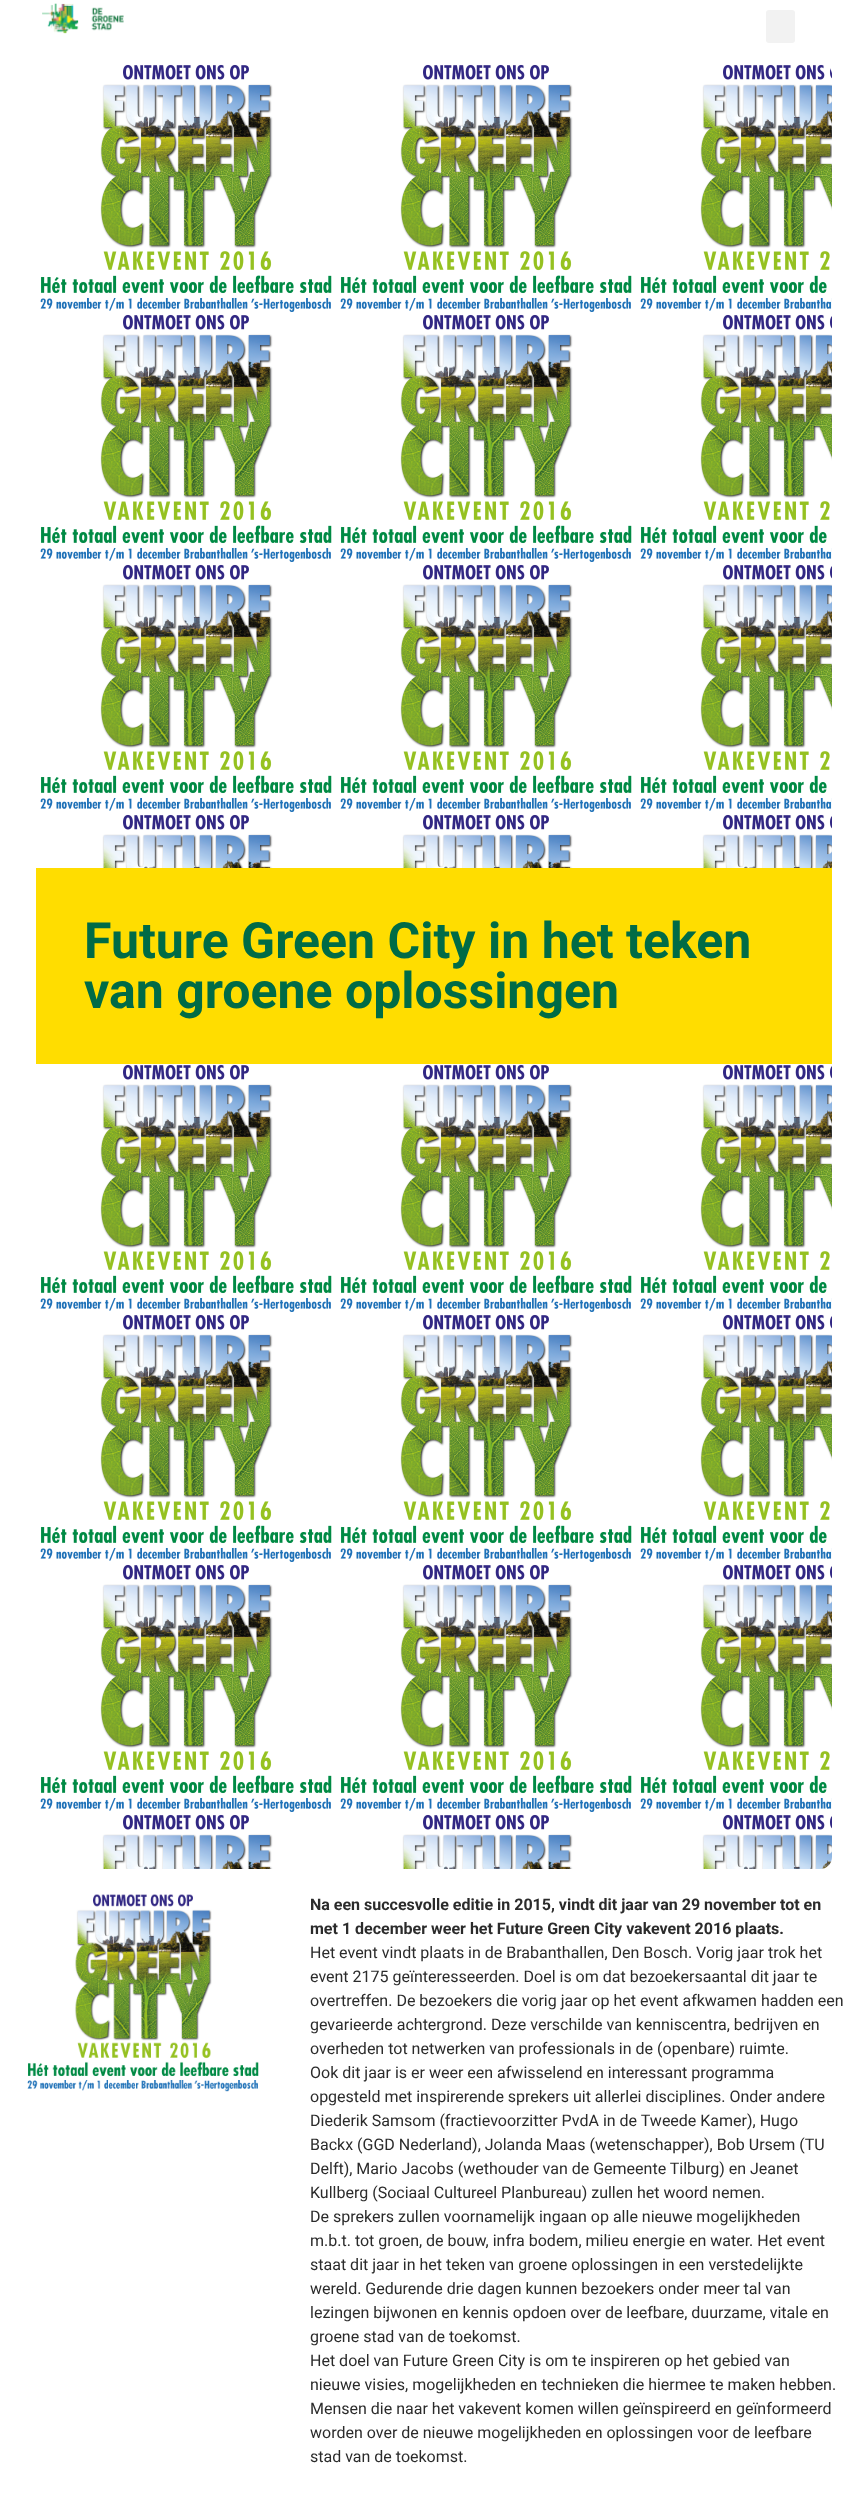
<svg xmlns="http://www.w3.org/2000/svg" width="868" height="2509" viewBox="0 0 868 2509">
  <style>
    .t1 { font: bold 50px Roboto; fill: #006b46; }
    .t2 { font: bold 16px Roboto; fill: #2b2b2b; }
    .t3 { font: 16px Roboto; fill: #2b2b2b; }
  </style>
  <rect width="100%" height="100%" fill="#fff"/>
  <image x="42" y="3" width="82" height="31" href="images/1.png"/>
  <rect x="766" y="10" width="29" height="33" rx="3" fill="#f2f2f2"/>
  <image x="40" y="64" width="792" height="1805" href="images/2.png"/>
  <rect x="36" y="868" width="796" height="196" fill="#fd0"/>
  <text x="84" y="958" class="t1">Future Green City in het teken</text>
  <text x="84" y="1008" class="t1">van groene oplossingen</text>
  <image x="27" y="1894" width="232" height="198" href="images/3.png"/>
  <text x="310" y="1910" class="t2">Na een succesvolle editie in 2015, vindt dit jaar van 29 november tot en</text>
  <text x="310" y="1934" class="t2">met 1 december weer het Future Green City vakevent 2016 plaats.</text>
  <text x="310" y="1958" class="t3">Het event vindt plaats in de Brabanthallen, Den Bosch. Vorig jaar trok het</text>
  <text x="310" y="1982" class="t3">event 2175 geïnteresseerden. Doel is om dat bezoekersaantal dit jaar te</text>
  <text x="310" y="2006" class="t3">overtreffen. De bezoekers die vorig jaar op het event afkwamen hadden een</text>
  <text x="310" y="2030" class="t3">gevarieerde achtergrond. Deze verschilde van kenniscentra, bedrijven en</text>
  <text x="310" y="2054" class="t3">overheden tot netwerken van professionals in de (openbare) ruimte.</text>
  <text x="310" y="2078" class="t3">Ook dit jaar is er weer een afwisselend en interessant programma</text>
  <text x="310" y="2102" class="t3">opgesteld met inspirerende sprekers uit allerlei disciplines. Onder andere</text>
  <text x="310" y="2126" class="t3">Diederik Samsom (fractievoorzitter PvdA in de Tweede Kamer), Hugo</text>
  <text x="310" y="2150" class="t3">Backx (GGD Nederland), Jolanda Maas (wetenschapper), Bob Ursem (TU</text>
  <text x="310" y="2174" class="t3">Delft), Mario Jacobs (wethouder van de Gemeente Tilburg) en Jeanet</text>
  <text x="310" y="2198" class="t3">Kullberg (Sociaal Cultureel Planbureau) zullen het woord nemen.</text>
  <text x="310" y="2222" class="t3">De sprekers zullen voornamelijk ingaan op alle nieuwe mogelijkheden</text>
  <text x="310" y="2246" class="t3">m.b.t. tot groen, de bouw, infra bodem, milieu energie en water. Het event</text>
  <text x="310" y="2270" class="t3">staat dit jaar in het teken van groene oplossingen in een verstedelijkte</text>
  <text x="310" y="2294" class="t3">wereld. Gedurende drie dagen kunnen bezoekers onder meer tal van</text>
  <text x="310" y="2318" class="t3">lezingen bijwonen en kennis opdoen over de leefbare, duurzame, vitale en</text>
  <text x="310" y="2342" class="t3">groene stad van de toekomst.</text>
  <text x="310" y="2366" class="t3">Het doel van Future Green City is om te inspireren op het gebied van</text>
  <text x="310" y="2390" class="t3">nieuwe visies, mogelijkheden en technieken die hiermee te maken hebben.</text>
  <text x="310" y="2414" class="t3">Mensen die naar het vakevent komen willen geïnspireerd en geïnformeerd</text>
  <text x="310" y="2438" class="t3">worden over de nieuwe mogelijkheden en oplossingen voor de leefbare</text>
  <text x="310" y="2462" class="t3">stad van de toekomst.</text>
</svg>
